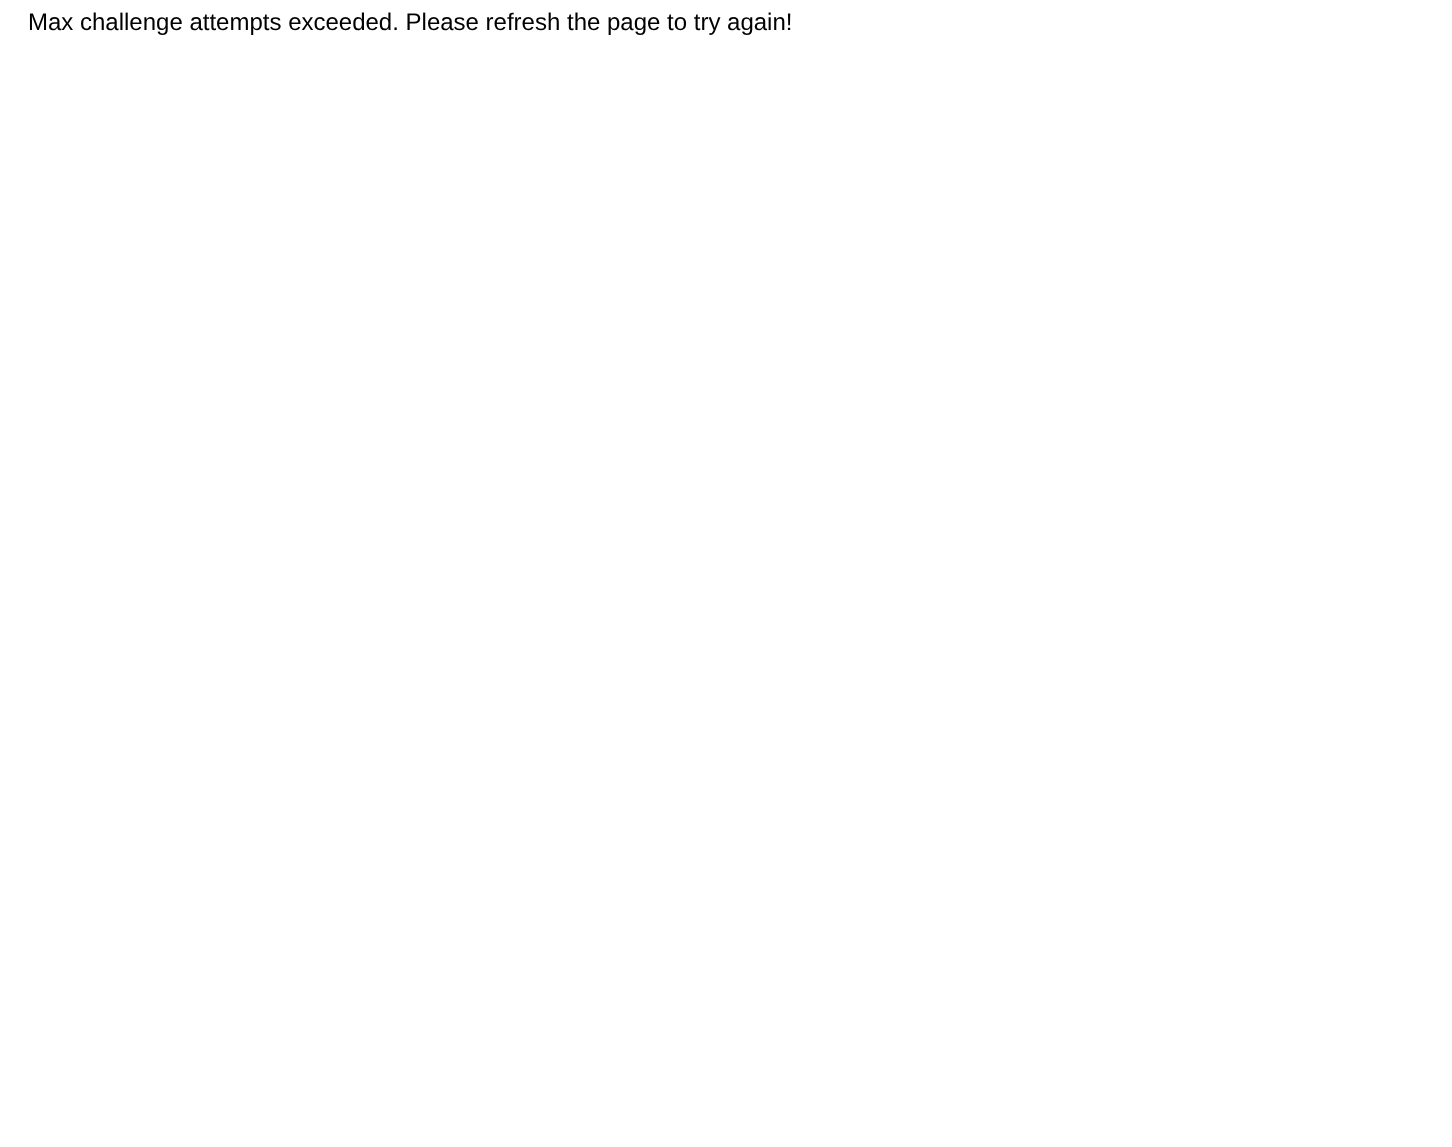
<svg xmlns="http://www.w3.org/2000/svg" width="1452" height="1147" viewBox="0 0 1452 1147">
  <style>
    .t1 { font: 24px Liberation Sans; fill: #000; }
  </style>
  <rect width="100%" height="100%" fill="#fff"/>
  <text x="28" y="30" class="t1">Max challenge attempts exceeded. Please refresh the page to try again!</text>
</svg>
